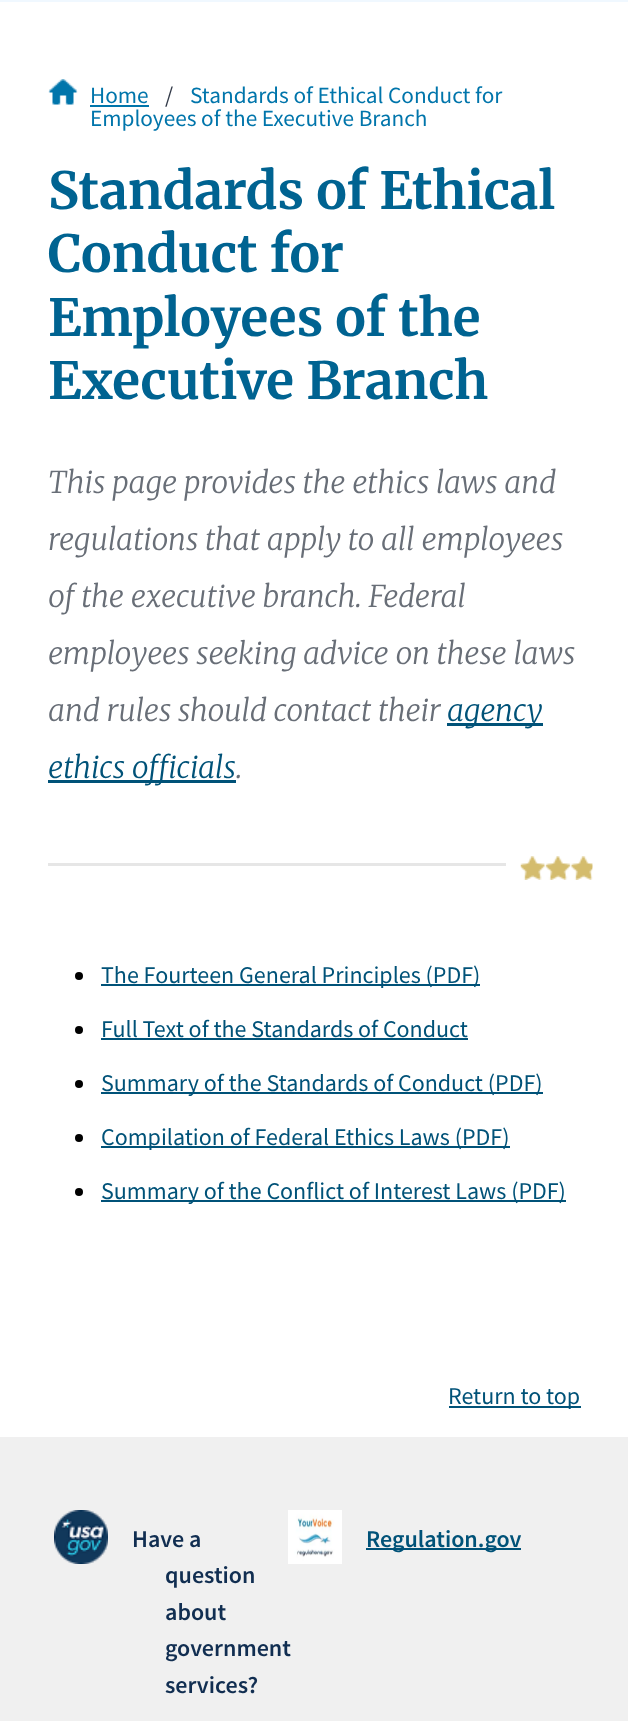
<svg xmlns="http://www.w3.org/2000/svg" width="628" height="1721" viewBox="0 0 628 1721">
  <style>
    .t1 { font: 23.25px Source Sans Pro; fill: #0075ab; }
    .t2 { font: 23.25px Source Sans Pro; fill: #323a48; }
    .t3 { font: bold 51.25px Merriweather; fill: #006391; }
    .t4 { font: italic 300 30px Merriweather; fill: #686e77; }
    .t5 { font: italic 300 30px Merriweather; fill: #005278; }
    .t6 { font: 24px Source Sans Pro; fill: #005278; }
    .t7 { font: 600 24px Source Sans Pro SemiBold; fill: #112e51; }
    .t8 { font: 600 24px Source Sans Pro SemiBold; fill: #005278; }
  </style>
  <rect width="100%" height="100%" fill="#fff"/>
  <rect x="0" y="0" width="628" height="2" fill="#f0f8ff"/>
  <image x="48" y="79" width="30" height="26" href="images/1.png"/>
  <text x="90" y="103" class="t1">Home</text>
  <rect x="90" y="105" width="59" height="2" fill="#0075ab"/>
  <text x="165" y="103" class="t2">/</text>
  <text x="190" y="103" class="t1">Standards of Ethical Conduct for</text>
  <text x="90" y="126" class="t1">Employees of the Executive Branch</text>
  <text x="48" y="209" class="t3">Standards of Ethical</text>
  <text x="48" y="272" class="t3">Conduct for</text>
  <text x="48" y="336" class="t3">Employees of the</text>
  <text x="48" y="399" class="t3">Executive Branch</text>
  <text x="48" y="493" class="t4">This page provides the ethics laws and</text>
  <text x="48" y="550" class="t4">regulations that apply to all employees</text>
  <text x="48" y="607" class="t4">of the executive branch. Federal</text>
  <text x="48" y="664" class="t4">employees seeking advice on these laws</text>
  <text x="48" y="721" class="t4">and rules should contact their</text>
  <rect x="447" y="723" width="96" height="3" fill="#005278"/>
  <text x="447" y="721" class="t5">agency</text>
  <rect x="48" y="780" width="188" height="3" fill="#005278"/>
  <text x="48" y="778" class="t5">ethics officials</text>
  <text x="236" y="778" class="t4">.</text>
  <rect x="48" y="863" width="458" height="3" fill="#e6e6e6"/>
  <image x="520" y="856" width="73" height="24" href="images/2.png"/>
  <circle cx="79" cy="976" r="4" fill="#000"/>
  <rect x="101" y="984" width="379" height="2" fill="#005278"/>
  <text x="101" y="983" class="t6">The Fourteen General Principles (PDF)</text>
  <circle cx="79" cy="1030" r="4" fill="#000"/>
  <text x="101" y="1037" class="t6">Full Text of the Standards of Conduct</text>
  <rect x="101" y="1038" width="367" height="2" fill="#005278"/>
  <circle cx="79" cy="1084" r="4" fill="#000"/>
  <rect x="101" y="1092" width="442" height="2" fill="#005278"/>
  <text x="101" y="1091" class="t6">Summary of the Standards of Conduct (PDF)</text>
  <circle cx="79" cy="1138" r="4" fill="#000"/>
  <rect x="101" y="1146" width="409" height="2" fill="#005278"/>
  <text x="101" y="1145" class="t6">Compilation of Federal Ethics Laws (PDF)</text>
  <circle cx="79" cy="1192" r="4" fill="#000"/>
  <rect x="101" y="1200" width="465" height="2" fill="#005278"/>
  <text x="101" y="1199" class="t6">Summary of the Conflict of Interest Laws (PDF)</text>
  <rect x="449" y="1406" width="132" height="2" fill="#005278"/>
  <text x="448" y="1404" class="t6">Return to top</text>
  <rect x="0" y="1437" width="628" height="284" fill="#f0f0f0"/>
  <image x="54" y="1510" width="54" height="54" href="images/3.png"/>
  <text x="132" y="1547" class="t7">Have a</text>
  <text x="165" y="1583" class="t7">question</text>
  <text x="165" y="1620" class="t7">about</text>
  <text x="165" y="1656" class="t7">government</text>
  <text x="165" y="1693" class="t7">services?</text>
  <image x="288" y="1510" width="54" height="54" href="images/4.png"/>
  <rect x="366" y="1548" width="155" height="2" fill="#005278"/>
  <text x="366" y="1547" class="t8">Regulation.gov</text>
</svg>
